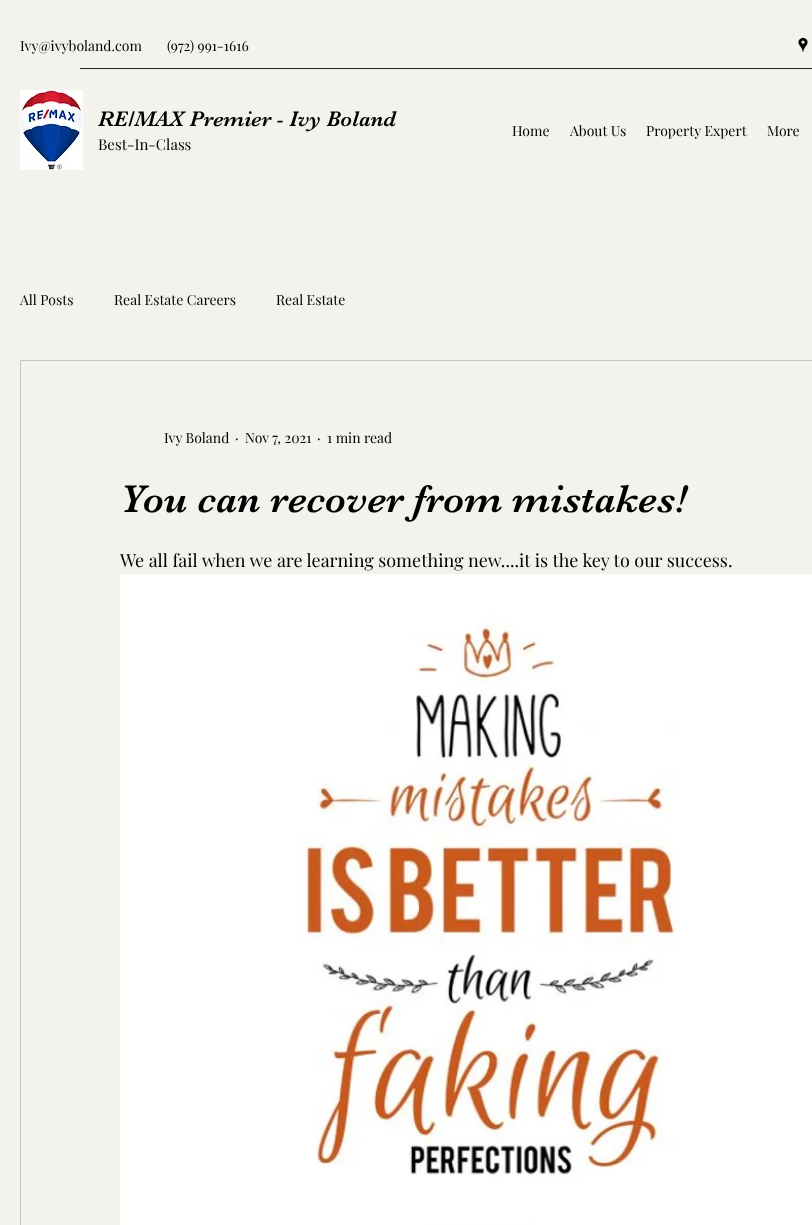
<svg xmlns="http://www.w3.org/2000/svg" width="812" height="1225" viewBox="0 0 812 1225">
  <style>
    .t1 { font: 14px Playfair Display; fill: #000; }
    .t2 { font: 22px 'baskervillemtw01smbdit'; fill: #000; }
    .t3 { font: 15px Playfair Display; fill: #000; }
    .t4 { font: 40px 'baskervillemtw01smbdit'; fill: #000; }
    .t5 { font: 18px Playfair Display; fill: #000; }
  </style>
  <rect width="100%" height="100%" fill="#f4f2ec"/>
  <text x="20" y="51" class="t1">Ivy@ivyboland.com</text>
  <text x="167" y="51" class="t1">(972) 991-1616</text>
  <image x="798" y="37" width="10" height="15" href="images/1.png"/>
  <rect x="80" y="68" width="732" height="1" fill="#252423"/>
  <image x="20" y="90" width="63" height="80" href="images/2.png"/>
  <text x="98" y="126" class="t2">RE/MAX Premier - Ivy Boland</text>
  <text x="98" y="150" class="t3">Best-In-Class</text>
  <text x="512" y="136" class="t1">Home</text>
  <text x="570" y="136" class="t1">About Us</text>
  <text x="646" y="136" class="t1">Property Expert</text>
  <text x="767" y="136" class="t1">More</text>
  <text x="20" y="305" class="t1">All Posts</text>
  <text x="114" y="305" class="t1">Real Estate Careers</text>
  <text x="276" y="305" class="t1">Real Estate</text>
  <rect x="20.5" y="360.5" width="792" height="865" fill="none" stroke="#c4c4c2"/>
  <text x="164" y="443" class="t1">Ivy Boland</text>
  <text x="235" y="443" class="t1">·</text>
  <text x="245" y="443" class="t1">Nov 7, 2021</text>
  <text x="317" y="443" class="t1">·</text>
  <text x="327" y="443" class="t1">1 min read</text>
  <text x="120" y="512" class="t4">You can recover from mistakes!</text>
  <text x="120" y="567" class="t5">We all fail when we are learning something new....it is the key to our success.</text>
  <image x="120" y="574" width="692" height="651" href="images/3.png"/>
</svg>
